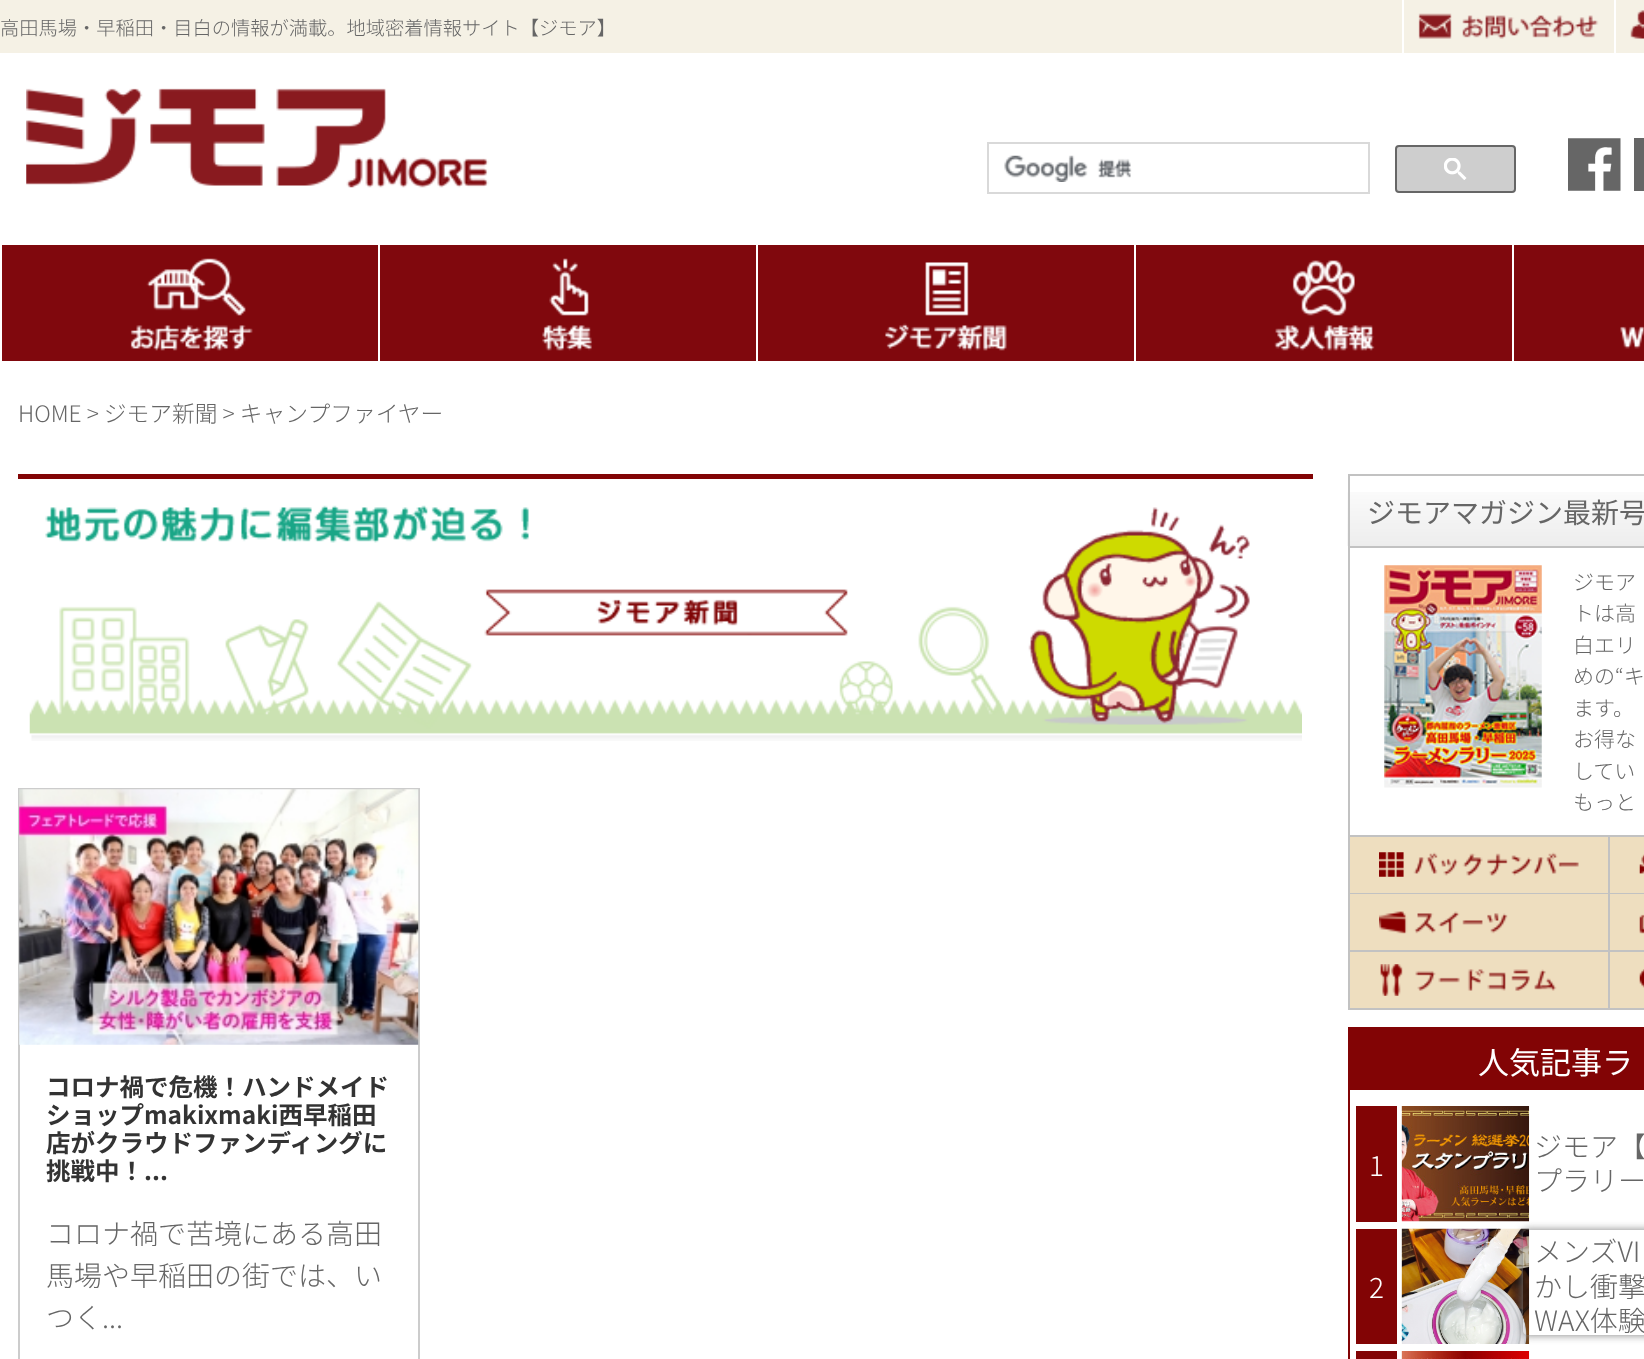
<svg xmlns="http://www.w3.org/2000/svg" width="1644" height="1359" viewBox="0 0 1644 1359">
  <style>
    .t1 { font: 300 19.25px Noto Sans JP; fill: #666; }
    .t2 { font: 300 22.75px Noto Sans JP; fill: #666; }
    .t3 { font: bold 24.5px Noto Sans JP; fill: #333; }
    .t4 { font: 300 28px Noto Sans JP; fill: #666; }
    .t5 { font: 28px Noto Sans JP; fill: #666; }
    .t6 { font: 300 21px Noto Sans JP; fill: #666; }
    .t7 { font: 31px Noto Sans JP; fill: #fff; }
    .t8 { font: 300 28px Noto Sans JP; fill: #fff; }
  </style>
  <defs>
    <clipPath id="clip1"><path d="M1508 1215H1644V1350H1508ZM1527 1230H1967C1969 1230 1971 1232 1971 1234V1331C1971 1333 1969 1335 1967 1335H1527C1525 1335 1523 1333 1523 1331V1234C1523 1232 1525 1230 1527 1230Z" clip-rule="evenodd"/></clipPath>
  </defs>
  <rect width="100%" height="100%" fill="#fff"/>
  <rect x="0" y="0" width="1644" height="53" fill="#f5f1e5"/>
  <text x="0" y="35" class="t1">高田馬場・早稲田・目白の情報が満載。地域密着情報サイト【ジモア】</text>
  <image x="1418" y="13" width="181" height="26" href="images/1.png"/>
  <rect x="1402" y="0" width="2" height="53" fill="#fff"/>
  <image x="1630" y="10" width="14" height="29" href="images/2.png"/>
  <rect x="1614" y="0" width="2" height="53" fill="#fff"/>
  <image x="26" y="88" width="463" height="100" href="images/3.png"/>
  <rect x="988" y="143" width="381" height="50" fill="none" stroke="#d9d9d9" stroke-width="2"/>
  <image x="1004" y="155" width="128" height="27" href="images/4.png"/>
  <rect x="1396" y="146" width="119" height="46" rx="3" fill="#cecece" stroke="#666" stroke-width="2"/>
  <image x="1444" y="158" width="23" height="22" href="images/5.png"/>
  <image x="1568" y="138" width="53" height="53" href="images/6.png"/>
  <rect x="1634" y="138" width="10" height="53" fill="#666"/>
  <rect x="2" y="245" width="376" height="116" fill="#80080d"/>
  <image x="130" y="258" width="123" height="93" href="images/7.png"/>
  <rect x="380" y="245" width="376" height="116" fill="#80080d"/>
  <image x="542" y="258" width="50" height="93" href="images/8.png"/>
  <rect x="758" y="245" width="376" height="116" fill="#80080d"/>
  <image x="885" y="262" width="122" height="89" href="images/9.png"/>
  <rect x="1136" y="245" width="376" height="116" fill="#80080d"/>
  <image x="1274" y="260" width="101" height="91" href="images/10.png"/>
  <rect x="1514" y="245" width="130" height="116" fill="#80080d"/>
  <image x="1620" y="326" width="24" height="23" href="images/11.png"/>
  <text x="18" y="422" class="t2">HOME &gt; ジモア新聞 &gt; キャンプファイヤー</text>
  <rect x="18" y="474" width="1295" height="5" fill="#820405"/>
  <image x="29" y="505" width="1273" height="236" href="images/12.png"/>
  <rect x="19" y="789" width="400" height="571" fill="none" stroke="#ccc" stroke-width="2"/>
  <image x="19" y="789" width="400" height="256" href="images/13.png"/>
  <text x="46" y="1096" class="t3">コロナ禍で危機！ハンドメイド</text>
  <text x="46" y="1124" class="t3">ショップmakixmaki西早稲田</text>
  <text x="46" y="1152" class="t3">店がクラウドファンディングに</text>
  <text x="46" y="1180" class="t3">挑戦中！...</text>
  <text x="46" y="1244" class="t4">コロナ禍で苦境にある高田</text>
  <text x="46" y="1286" class="t4">馬場や早稲田の街では、い</text>
  <text x="46" y="1328" class="t4">つく...</text>
  <image x="1347" y="492" width="297" height="54" href="images/14.png"/>
  <rect x="1348" y="474" width="296" height="2" fill="#c2c2c2"/>
  <rect x="1348" y="474" width="2" height="72" fill="#c2c2c2"/>
  <text x="1367" y="523" class="t5">ジモアマガジン最新号</text>
  <rect x="1349" y="547" width="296" height="289" fill="none" stroke="#c2c2c2" stroke-width="2"/>
  <image x="1384" y="565" width="158" height="223" href="images/15.png"/>
  <text x="1573" y="590" class="t6">ジモア</text>
  <text x="1573" y="621" class="t6">トは高</text>
  <text x="1573" y="653" class="t6">白エリ</text>
  <text x="1573" y="684" class="t6">めの“キ</text>
  <text x="1573" y="716" class="t6">ます。</text>
  <text x="1573" y="747" class="t6">お得な</text>
  <text x="1573" y="779" class="t6">してい</text>
  <text x="1573" y="810" class="t6">もっと</text>
  <rect x="1350" y="837" width="258" height="56" fill="#eedebf"/>
  <image x="1379" y="852" width="200" height="25" href="images/16.png"/>
  <rect x="1348" y="893" width="296" height="1" fill="#c2c2c2"/>
  <rect x="1348" y="837" width="2" height="57" fill="#c2c2c2"/>
  <rect x="1610" y="837" width="34" height="56" fill="#eedebf"/>
  <image x="1639" y="854" width="5" height="20" href="images/17.png"/>
  <rect x="1608" y="837" width="2" height="57" fill="#c2c2c2"/>
  <rect x="1350" y="894" width="258" height="56" fill="#eedebf"/>
  <image x="1379" y="911" width="129" height="23" href="images/18.png"/>
  <rect x="1348" y="950" width="296" height="2" fill="#c2c2c2"/>
  <rect x="1348" y="894" width="2" height="58" fill="#c2c2c2"/>
  <rect x="1610" y="894" width="34" height="56" fill="#eedebf"/>
  <image x="1639" y="914" width="5" height="20" href="images/19.png"/>
  <rect x="1608" y="894" width="2" height="58" fill="#c2c2c2"/>
  <rect x="1350" y="952" width="258" height="56" fill="#eedebf"/>
  <image x="1380" y="964" width="177" height="32" href="images/20.png"/>
  <rect x="1348" y="1008" width="296" height="2" fill="#c2c2c2"/>
  <rect x="1348" y="952" width="2" height="58" fill="#c2c2c2"/>
  <rect x="1610" y="952" width="34" height="56" fill="#eedebf"/>
  <image x="1639" y="969" width="5" height="19" href="images/21.png"/>
  <rect x="1608" y="952" width="2" height="58" fill="#c2c2c2"/>
  <rect x="1349" y="1028" width="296" height="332" fill="none" stroke="#820405" stroke-width="2"/>
  <rect x="1350" y="1029" width="294" height="61" fill="#820405"/>
  <text x="1478" y="1074" class="t7">人気記事ラ</text>
  <rect x="1356" y="1106" width="41" height="116" fill="#820405"/>
  <text x="1369" y="1176" class="t8">1</text>
  <image x="1401" y="1106" width="129" height="116" href="images/22.png"/>
  <text x="1534" y="1157" class="t4">ジモア【</text>
  <text x="1534" y="1191" class="t4">プラリー</text>
  <rect x="1356" y="1229" width="41" height="115" fill="#820405"/>
  <text x="1369" y="1298" class="t8">2</text>
  <image x="1401" y="1228" width="129" height="116" href="images/23.png"/>
  <text x="1534" y="1262" class="t4">メンズVI</text>
  <text x="1534" y="1297" class="t4">かし衝撃</text>
  <text x="1534" y="1331" class="t4">WAX体験</text>
  <rect x="1356" y="1351" width="41" height="8" fill="#820405"/>
  <image x="1401" y="1351" width="129" height="8" href="images/24.png"/>
  <g clip-path="url(#clip1)">
    <rect x="1523" y="1230" width="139" height="105" rx="4" fill="#808080" filter="blur(4.5px)"/>
  </g>
</svg>
